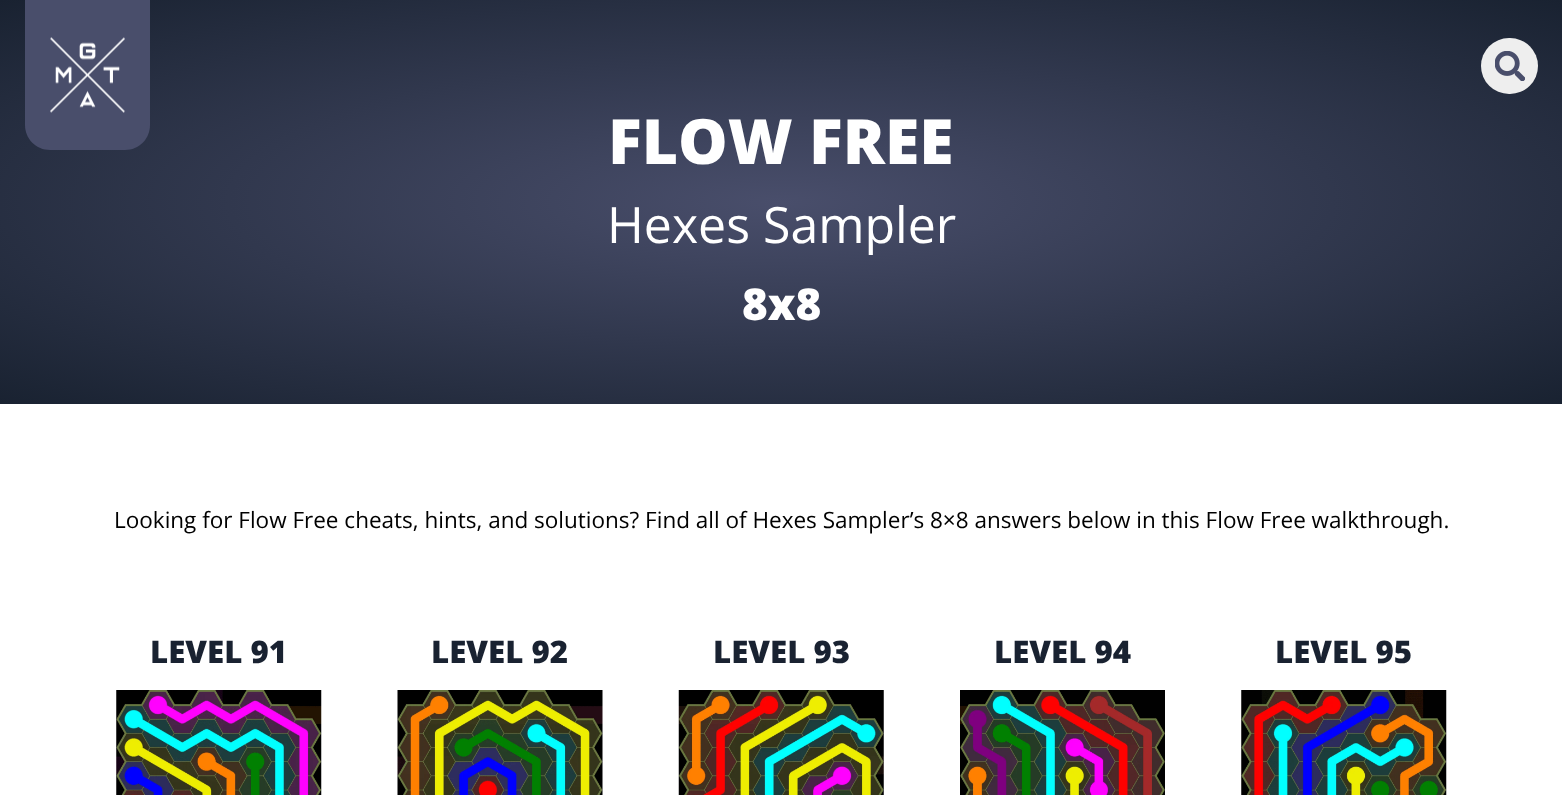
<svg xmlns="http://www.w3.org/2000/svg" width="1562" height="795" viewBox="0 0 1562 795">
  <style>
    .t1 { font: 800 62.5px Open Sans; fill: #fff; }
    .t2 { font: 50px Open Sans; fill: #fff; }
    .t3 { font: 800 44px Open Sans; fill: #fff; }
    .t4 { font: 22.5px Open Sans; fill: #000; }
    .t5 { font: 800 31.25px Open Sans; fill: #192231; }
  </style>
  <defs>
    <radialGradient id="g1" gradientUnits="userSpaceOnUse" cx="0" cy="0" r="1" gradientTransform="matrix(1105 0 0 285 781 202)"><stop offset="0" stop-color="#494e6b"/><stop offset="1" stop-color="#192231"/></radialGradient>
  </defs>
  <rect width="100%" height="100%" fill="#fff"/>
  <rect x="0" y="0" width="1562" height="404" fill="url(#g1)"/>
  <path d="M25 0H150V125C150 139 139 150 125 150H50C36 150 25 139 25 125Z" fill="#494e6b"/>
  <image x="50" y="37" width="75" height="76" href="images/1.png"/>
  <rect x="1481" y="38" width="57" height="56" rx="28" fill="#eee"/>
  <image x="1495" y="51" width="30" height="30" href="images/2.png"/>
  <text x="608" y="164" class="t1">FLOW FREE</text>
  <text x="607" y="243" class="t2">Hexes Sampler</text>
  <text x="742" y="320" class="t3">8x8</text>
  <text x="114" y="528" class="t4">Looking for Flow Free cheats, hints, and solutions? Find all of Hexes Sampler’s 8×8 answers below in this Flow Free walkthrough.</text>
  <text x="150" y="663" class="t5">LEVEL 91</text>
  <image x="116" y="690" width="206" height="105" href="images/3.png"/>
  <text x="431" y="663" class="t5">LEVEL 92</text>
  <image x="397" y="690" width="206" height="105" href="images/4.png"/>
  <text x="713" y="663" class="t5">LEVEL 93</text>
  <image x="678" y="690" width="206" height="105" href="images/5.png"/>
  <text x="994" y="663" class="t5">LEVEL 94</text>
  <image x="960" y="690" width="205" height="105" href="images/6.png"/>
  <text x="1275" y="663" class="t5">LEVEL 95</text>
  <image x="1241" y="690" width="206" height="105" href="images/7.png"/>
</svg>
